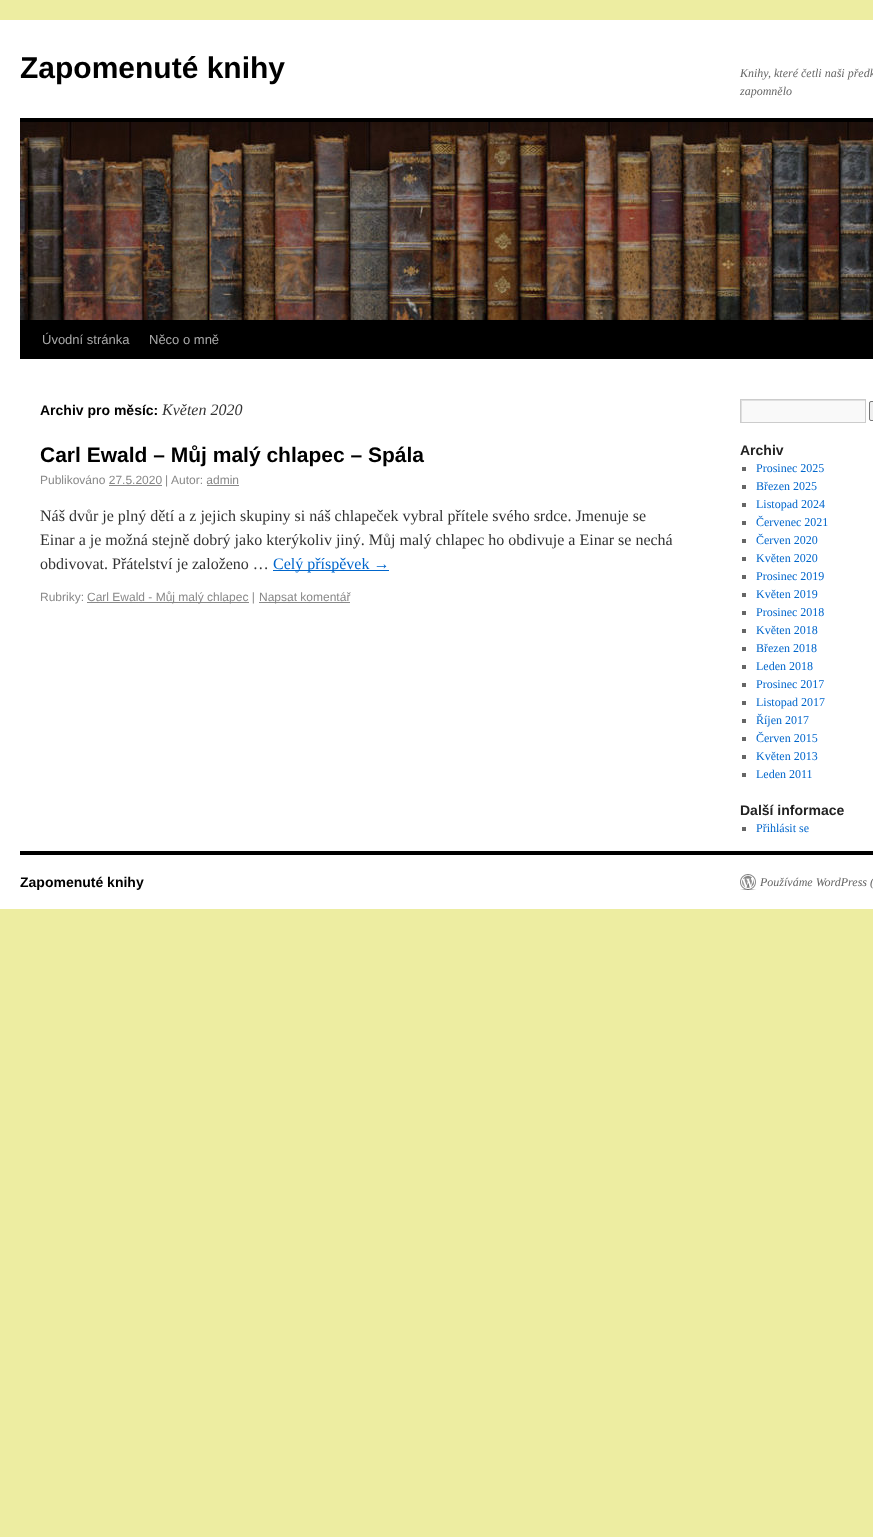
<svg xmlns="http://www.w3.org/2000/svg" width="873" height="1537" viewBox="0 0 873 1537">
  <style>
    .t1 { font: bold 30px Liberation Sans; fill: #000; }
    .t2 { font: italic 12px Liberation Serif; fill: #666; }
    .t3 { font: 13px Liberation Sans; fill: #aaa; }
    .t4 { font: bold 14px Liberation Sans; fill: #000; }
    .t5 { font: italic 16px Liberation Serif; fill: #333; }
    .t6 { font: bold 21px Liberation Sans; fill: #000; }
    .t7 { font: 12px Liberation Sans; fill: #888; }
    .t8 { font: 16px Liberation Serif; fill: #333; }
    .t9 { font: 16px Liberation Serif; fill: #06c; }
    .t10 { font: bold 14px Liberation Sans; fill: #222; }
    .t11 { font: 12px Liberation Serif; fill: #06c; }
  </style>
  <defs>
    <clipPath id="clip1"><rect x="741" y="400" width="124" height="22"/></clipPath>
  </defs>
  <rect width="100%" height="100%" fill="#ededa1"/>
  <rect x="0" y="20" width="873" height="889" fill="#fff"/>
  <text x="20" y="78" class="t1">Zapomenuté knihy</text>
  <text x="740" y="77" class="t2">Knihy, které četli naši předk</text>
  <text x="740" y="95" class="t2">zapomnělo</text>
  <rect x="20" y="118" width="853" height="4" fill="#000"/>
  <rect x="20" y="320" width="853" height="39" fill="#000"/>
  <image x="20" y="122" width="853" height="198" href="images/1.png"/>
  <text x="42" y="344" class="t3">Úvodní stránka</text>
  <text x="149" y="344" class="t3">Něco o mně</text>
  <text x="40" y="415" class="t4">Archiv pro měsíc:</text>
  <text x="162" y="415" class="t5">Květen 2020</text>
  <text x="40" y="462" class="t6">Carl Ewald – Můj malý chlapec – Spála</text>
  <text x="40" y="484" class="t7">Publikováno 27.5.2020</text>
  <text x="165" y="484" class="t7">|</text>
  <text x="171" y="484" class="t7">Autor: admin</text>
  <rect x="109" y="485" width="53" height="1" fill="#888"/>
  <rect x="207" y="485" width="32" height="1" fill="#888"/>
  <text x="40" y="521" class="t8">Náš dvůr je plný dětí a z jejich skupiny si náš chlapeček vybral přítele svého srdce. Jmenuje se</text>
  <text x="40" y="545" class="t8">Einar a je možná stejně dobrý jako kterýkoliv jiný. Můj malý chlapec ho obdivuje a Einar se nechá</text>
  <text x="40" y="569" class="t8">obdivovat. Přátelství je založeno …</text>
  <rect x="273" y="570" width="116" height="1" fill="#06c"/>
  <text x="273" y="569" class="t9">Celý příspěvek →</text>
  <text x="40" y="601" class="t7">Rubriky:</text>
  <rect x="87" y="602" width="162" height="1" fill="#888"/>
  <text x="87" y="601" class="t7">Carl Ewald - Můj malý chlapec |</text>
  <rect x="259" y="602" width="91" height="1" fill="#888"/>
  <text x="259" y="601" class="t7">Napsat komentář</text>
  <rect x="742" y="401" width="123" height="21" fill="#f9f9f9"/>
  <g clip-path="url(#clip1)">
    <path d="M642 301H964V521H642ZM742 401H866V423H742Z" fill="#e0e0e0" fill-rule="evenodd"/>
  </g>
  <rect x="740.5" y="399.5" width="125" height="23" fill="none" stroke="#ccc"/>
  <rect x="869.5" y="401.5" width="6" height="19" rx="1.5" fill="#efefef" stroke="#767676"/>
  <text x="740" y="455" class="t10">Archiv</text>
  <rect x="742" y="467" width="4" height="4" fill="#666"/>
  <text x="756" y="472" class="t11">Prosinec 2025</text>
  <rect x="742" y="485" width="4" height="4" fill="#666"/>
  <text x="756" y="490" class="t11">Březen 2025</text>
  <rect x="742" y="503" width="4" height="4" fill="#666"/>
  <text x="756" y="508" class="t11">Listopad 2024</text>
  <rect x="742" y="521" width="4" height="4" fill="#666"/>
  <text x="756" y="526" class="t11">Červenec 2021</text>
  <rect x="742" y="539" width="4" height="4" fill="#666"/>
  <text x="756" y="544" class="t11">Červen 2020</text>
  <rect x="742" y="557" width="4" height="4" fill="#666"/>
  <text x="756" y="562" class="t11">Květen 2020</text>
  <rect x="742" y="575" width="4" height="4" fill="#666"/>
  <text x="756" y="580" class="t11">Prosinec 2019</text>
  <rect x="742" y="593" width="4" height="4" fill="#666"/>
  <text x="756" y="598" class="t11">Květen 2019</text>
  <rect x="742" y="611" width="4" height="4" fill="#666"/>
  <text x="756" y="616" class="t11">Prosinec 2018</text>
  <rect x="742" y="629" width="4" height="4" fill="#666"/>
  <text x="756" y="634" class="t11">Květen 2018</text>
  <rect x="742" y="647" width="4" height="4" fill="#666"/>
  <text x="756" y="652" class="t11">Březen 2018</text>
  <rect x="742" y="665" width="4" height="4" fill="#666"/>
  <text x="756" y="670" class="t11">Leden 2018</text>
  <rect x="742" y="683" width="4" height="4" fill="#666"/>
  <text x="756" y="688" class="t11">Prosinec 2017</text>
  <rect x="742" y="701" width="4" height="4" fill="#666"/>
  <text x="756" y="706" class="t11">Listopad 2017</text>
  <rect x="742" y="719" width="4" height="4" fill="#666"/>
  <text x="756" y="724" class="t11">Říjen 2017</text>
  <rect x="742" y="737" width="4" height="4" fill="#666"/>
  <text x="756" y="742" class="t11">Červen 2015</text>
  <rect x="742" y="755" width="4" height="4" fill="#666"/>
  <text x="756" y="760" class="t11">Květen 2013</text>
  <rect x="742" y="773" width="4" height="4" fill="#666"/>
  <text x="756" y="778" class="t11">Leden 2011</text>
  <text x="740" y="815" class="t10">Další informace</text>
  <rect x="742" y="827" width="4" height="4" fill="#666"/>
  <text x="756" y="832" class="t11">Přihlásit se</text>
  <rect x="20" y="851" width="853" height="4" fill="#000"/>
  <text x="20" y="887" class="t4">Zapomenuté knihy</text>
  <image x="740" y="874" width="16" height="16" href="images/2.png"/>
  <text x="760" y="886" class="t2">Používáme WordPress (</text>
</svg>
